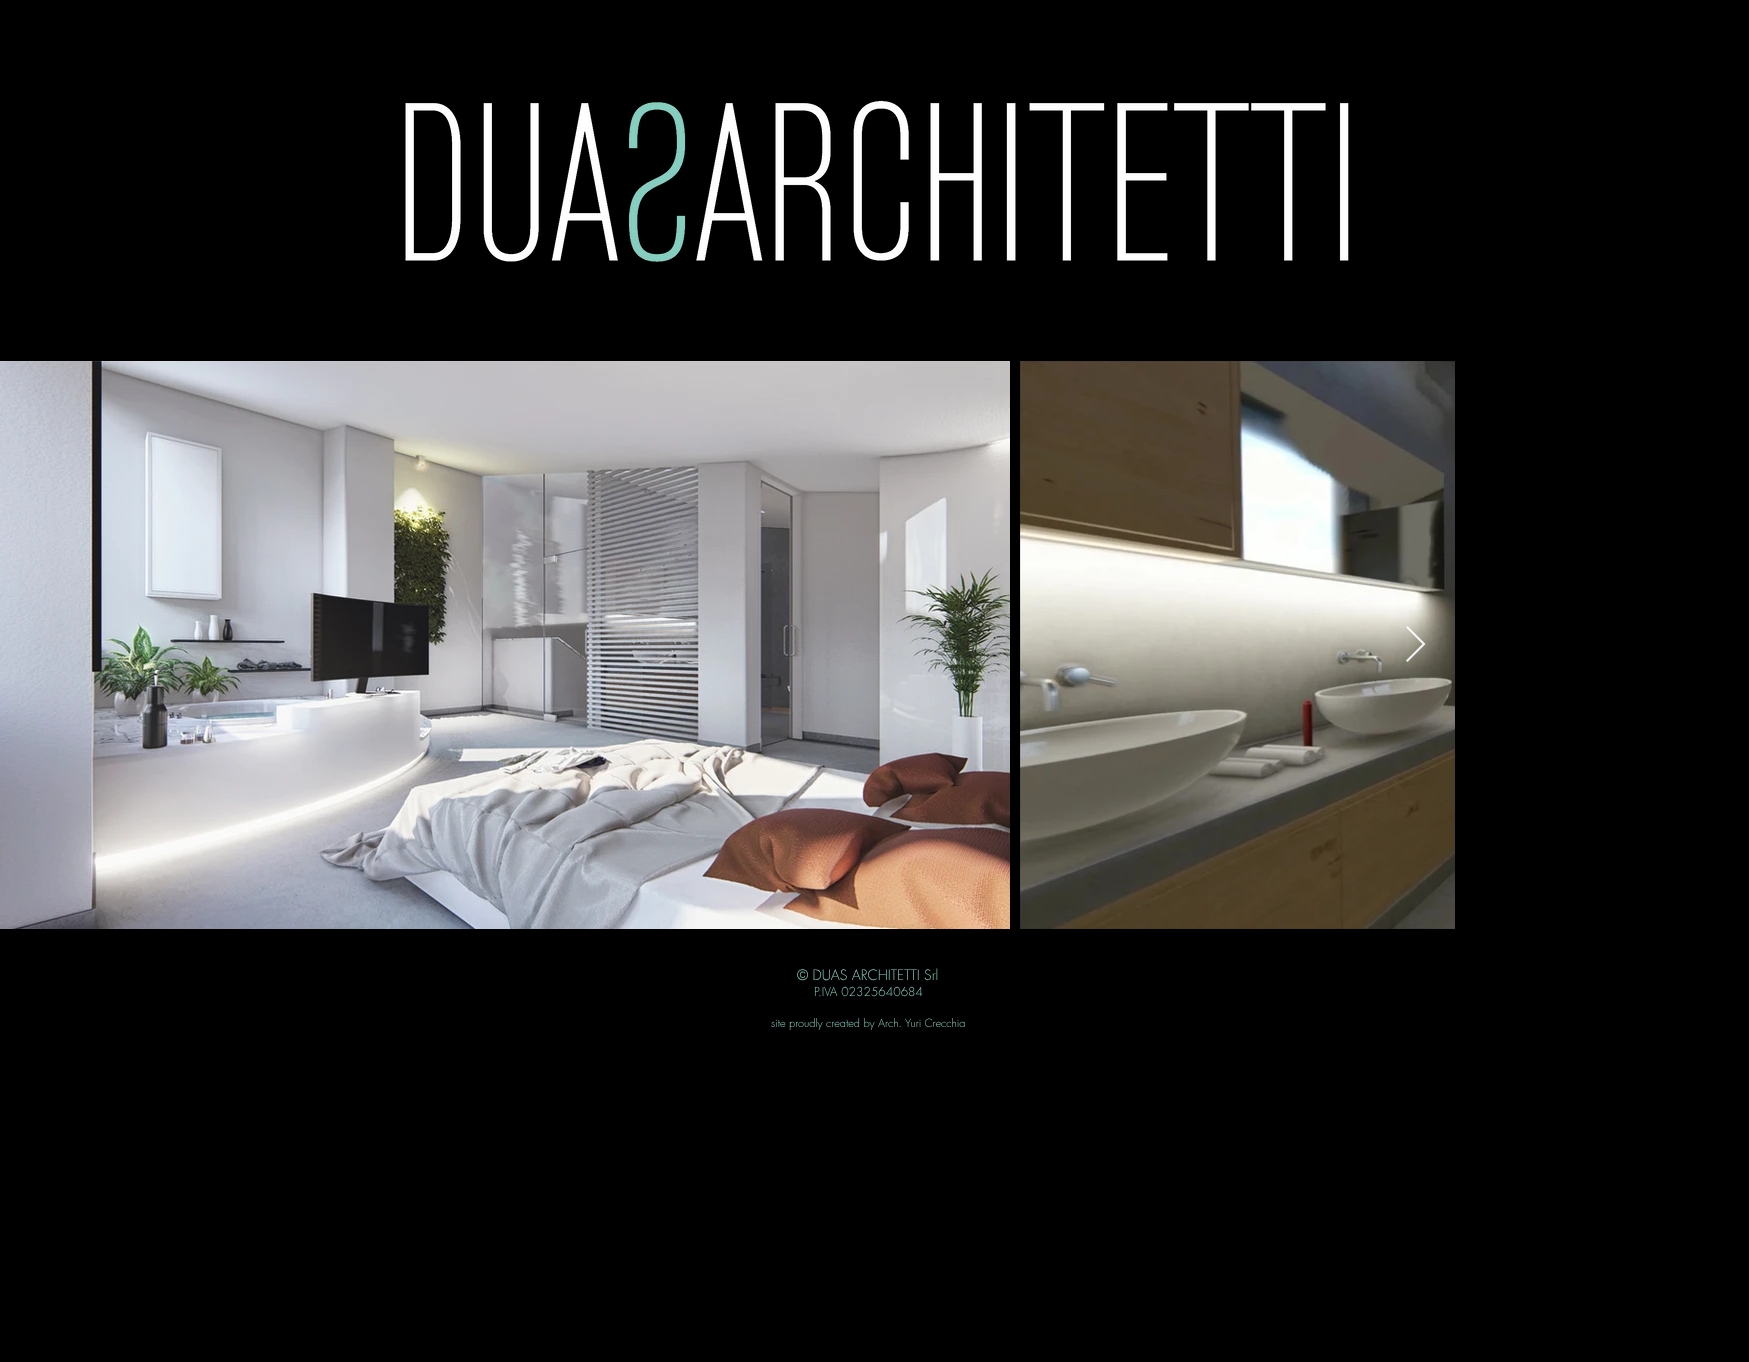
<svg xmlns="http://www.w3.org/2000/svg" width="1749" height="1362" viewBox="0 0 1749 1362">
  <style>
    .t1 { font: 300 14px futura; fill: #80cec0; }
    .t2 { font: 300 12px futura; fill: #80cec0; }
    .t3 { font: 300 11px futura; fill: #80cec0; }
  </style>
  <rect width="100%" height="100%" fill="#000"/>
  <image x="405" y="100" width="944" height="162" href="images/1.png"/>
  <image x="0" y="361" width="1010" height="568" href="images/2.png"/>
  <image x="1020" y="361" width="435" height="568" href="images/3.png"/>
  <path d="M1406 627.5L1407.5 626L1425.5 644L1407.5 662L1406 660.5L1422.5 644Z" fill="#ffffffe6"/>
  <text x="797" y="980" class="t1">© DUAS ARCHITETTI Srl</text>
  <text x="814" y="996" class="t2">P.IVA 02325640684</text>
  <text x="771" y="1027" class="t3">site proudly created by Arch. Yuri Crecchia</text>
</svg>
